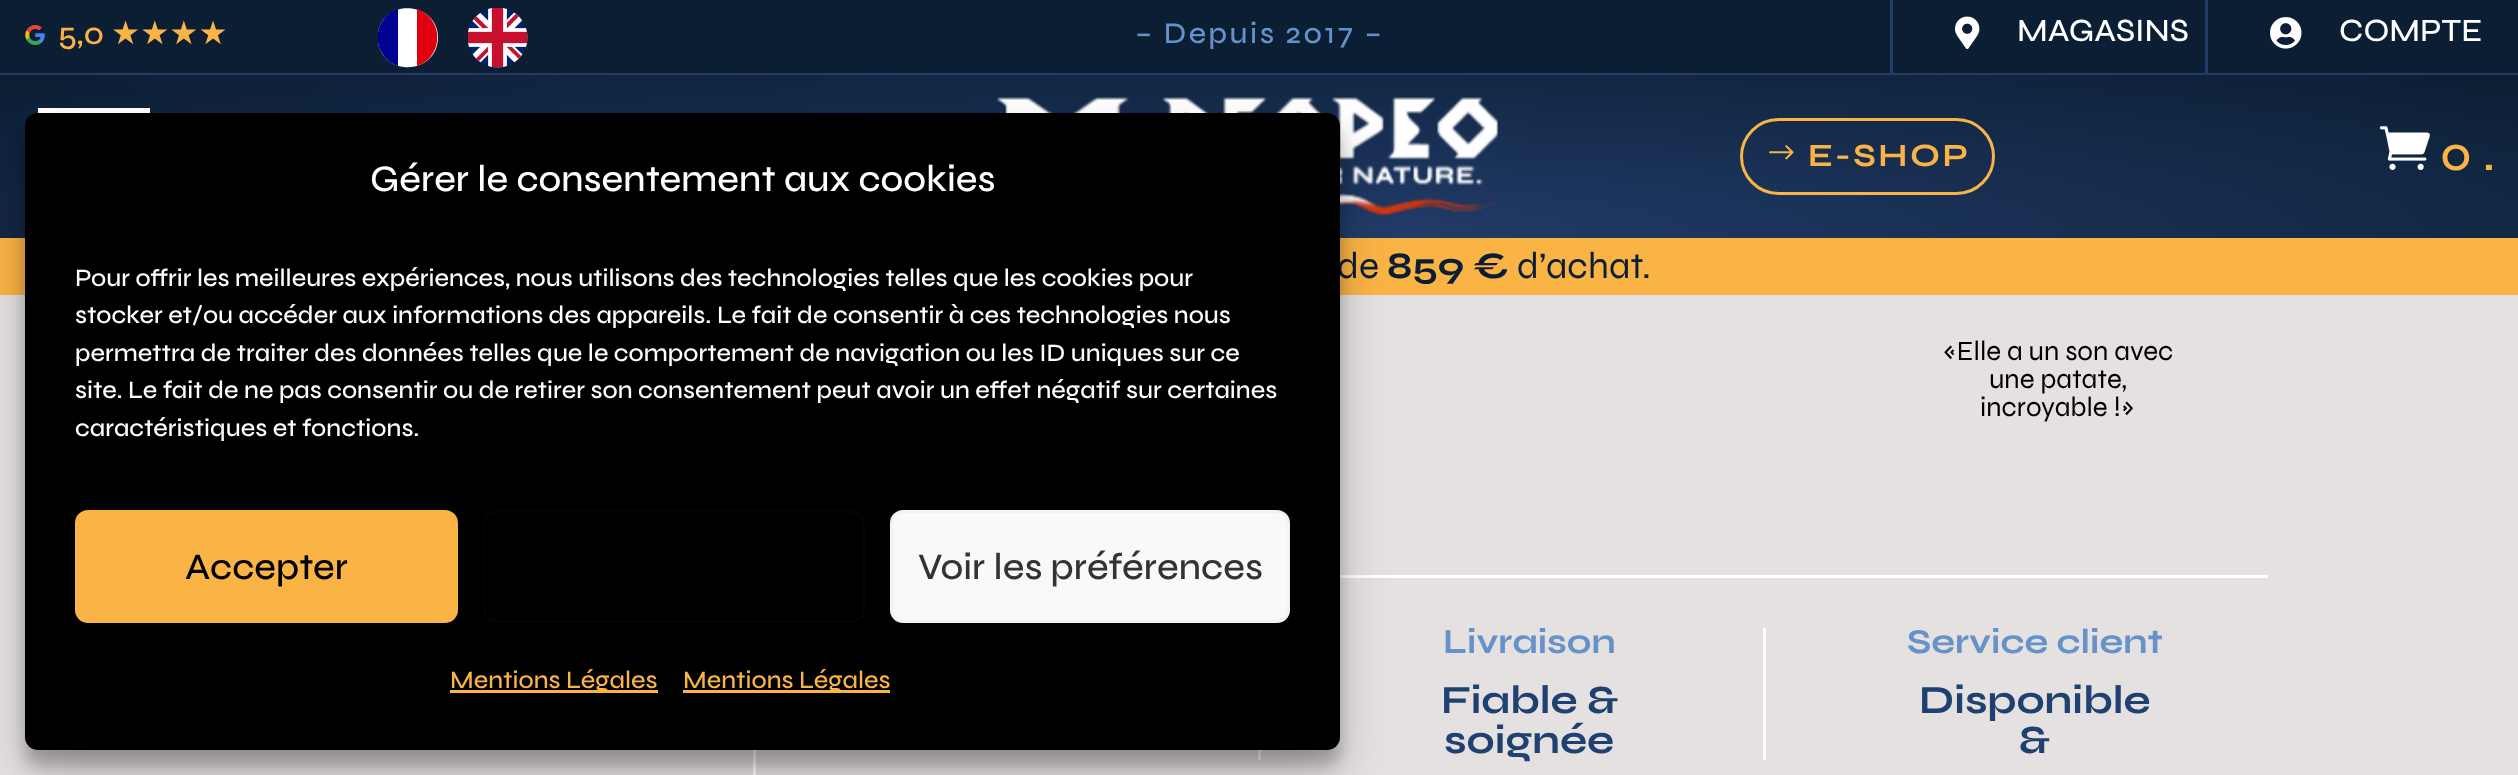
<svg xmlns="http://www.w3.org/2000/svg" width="2518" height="775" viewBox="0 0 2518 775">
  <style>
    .t1 { font: 500 32.5px Syne; fill: #fab445; }
    .t2 { font: 32.5px DejaVu Sans; fill: #fab445; }
    .t3 { font: 500 30px Syne; letter-spacing: 2.5px; fill: #6492c9; }
    .t4 { font: 500 32.5px Syne; fill: #fff; }
    .t5 { font: bold 32.5px Syne; letter-spacing: 2.5px; fill: #fab445; }
    .t6 { font: 500 50px Syne; fill: #fab445; }
    .t7 { font: 37.5px Syne; fill: #0b1e33; }
    .t8 { font: bold 37.5px Syne; fill: #0b1e33; }
    .t9 { font: 27.75px Syne; fill: #000; }
    .t10 { font: bold 35px Syne; fill: #6492c9; }
    .t11 { font: bold 40px Syne; fill: #1e4172; }
    .t12 { font: 500 37.5px Syne; fill: #fff; }
    .t13 { font: 500 25px Syne; fill: #fff; }
    .t14 { font: 500 37.5px Syne; fill: #000; }
    .t15 { font: 500 37.5px Syne; fill: #333; }
    .t16 { font: 500 25px Syne; fill: #fab445; }
  </style>
  <defs>
    <radialGradient id="g1" gradientUnits="userSpaceOnUse" cx="0" cy="0" r="1" gradientTransform="matrix(1782 0 0 230 1260 238)"><stop offset="0" stop-color="#233d6c"/><stop offset="1" stop-color="#0b1e33"/></radialGradient>
  </defs>
  <rect width="100%" height="100%" fill="#e5e1e0"/>
  <rect x="0" y="73" width="2518" height="2" fill="#233d6b"/>
  <rect x="0" y="0" width="2518" height="73" fill="#0b1e33"/>
  <image x="25" y="25" width="20" height="20" href="images/1.png"/>
  <text x="58" y="44" class="t1">5,0</text>
  <text x="111" y="44" class="t2">★★★★</text>
  <path d="M378 32C385-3 438 2 438 38C437 74 385 78 378 43Z" fill="#fff"/>
  <path d="M378 32C380 21 388 12 398 9V66C388 63 380 54 378 43Z" fill="#000091"/>
  <path d="M417 9C444 18 444 57 417 66Z" fill="#e1000f"/>
  <image x="468" y="8" width="60" height="60" href="images/2.png"/>
  <text x="1135" y="43" class="t3">– Depuis 2017 –</text>
  <rect x="1890" y="0" width="3" height="75" fill="#233d6b"/>
  <image x="1955" y="16" width="25" height="33" href="images/3.png"/>
  <text x="2017" y="41" class="t4">MAGASINS</text>
  <rect x="2205" y="0" width="3" height="75" fill="#233d6b"/>
  <image x="2270" y="17" width="32" height="32" href="images/4.png"/>
  <text x="2339" y="41" class="t4">COMPTE</text>
  <rect x="0" y="75" width="2518" height="163" fill="url(#g1)"/>
  <rect x="38" y="108" width="112" height="5" fill="#fff"/>
  <image x="997" y="97" width="501" height="119" href="images/5.png"/>
  <rect x="1741.5" y="119.5" width="252" height="74" rx="37" fill="none" stroke="#fab445" stroke-width="3"/>
  <image x="1769" y="145" width="25" height="15" href="images/6.png"/>
  <text x="1808" y="166" class="t5">E-SHOP</text>
  <image x="2379" y="126" width="51" height="44" href="images/7.png"/>
  <text x="2440" y="170" class="t6">0 .</text>
  <rect x="0" y="238" width="2518" height="57" fill="#fab445"/>
  <text x="1337" y="278" class="t7">de</text>
  <text x="1387" y="278" class="t8">859 €</text>
  <text x="1517" y="278" class="t7">d’achat.</text>
  <rect x="1340" y="575" width="928" height="3" fill="#fff"/>
  <text x="1943" y="360" class="t9">«Elle a un son avec</text>
  <text x="1989" y="388" class="t9">une patate,</text>
  <text x="1980" y="416" class="t9">incroyable !»</text>
  <rect x="1763" y="628" width="3" height="132" fill="#fff"/>
  <text x="1443" y="653" class="t10">Livraison</text>
  <text x="1441" y="713" class="t11">Fiable &amp;</text>
  <text x="1444" y="753" class="t11">soignée</text>
  <text x="1907" y="653" class="t10">Service client</text>
  <text x="1919" y="713" class="t11">Disponible</text>
  <text x="2019" y="753" class="t11">&amp;</text>
  <rect x="753" y="750" width="3" height="25" fill="#fff"/>
  <rect x="1258" y="750" width="3" height="10" fill="#fff"/>
  <rect x="25" y="128" width="1315" height="637" rx="13" fill="#0000003b" filter="blur(7.5px)"/>
  <rect x="25" y="138" width="1315" height="637" rx="13" fill="#00000030" filter="blur(25px)"/>
  <rect x="25" y="113" width="1315" height="637" rx="13" fill="#000"/>
  <text x="370" y="191" class="t12">Gérer le consentement aux cookies</text>
  <text x="75" y="286" class="t13">Pour offrir les meilleures expériences, nous utilisons des technologies telles que les cookies pour</text>
  <text x="75" y="323" class="t13">stocker et/ou accéder aux informations des appareils. Le fait de consentir à ces technologies nous</text>
  <text x="75" y="361" class="t13">permettra de traiter des données telles que le comportement de navigation ou les ID uniques sur ce</text>
  <text x="75" y="398" class="t13">site. Le fait de ne pas consentir ou de retirer son consentement peut avoir un effet négatif sur certaines</text>
  <text x="75" y="436" class="t13">caractéristiques et fonctions.</text>
  <rect x="76.5" y="511.5" width="380" height="110" rx="11.5" fill="#fab445" stroke="#fab445" stroke-width="3"/>
  <text x="185" y="579" class="t14">Accepter</text>
  <rect x="484.5" y="511.5" width="379" height="110" rx="11.5" fill="none" stroke="#040404" stroke-width="3"/>
  <rect x="891.5" y="511.5" width="397" height="110" rx="11.5" fill="#f9f9f9" stroke="#f2f2f2" stroke-width="3"/>
  <text x="918" y="579" class="t15">Voir les préférences</text>
  <rect x="450" y="690" width="208" height="3" fill="#fab445"/>
  <text x="450" y="688" class="t16">Mentions Légales</text>
  <rect x="683" y="690" width="207" height="3" fill="#fab445"/>
  <text x="683" y="688" class="t16">Mentions Légales</text>
</svg>
